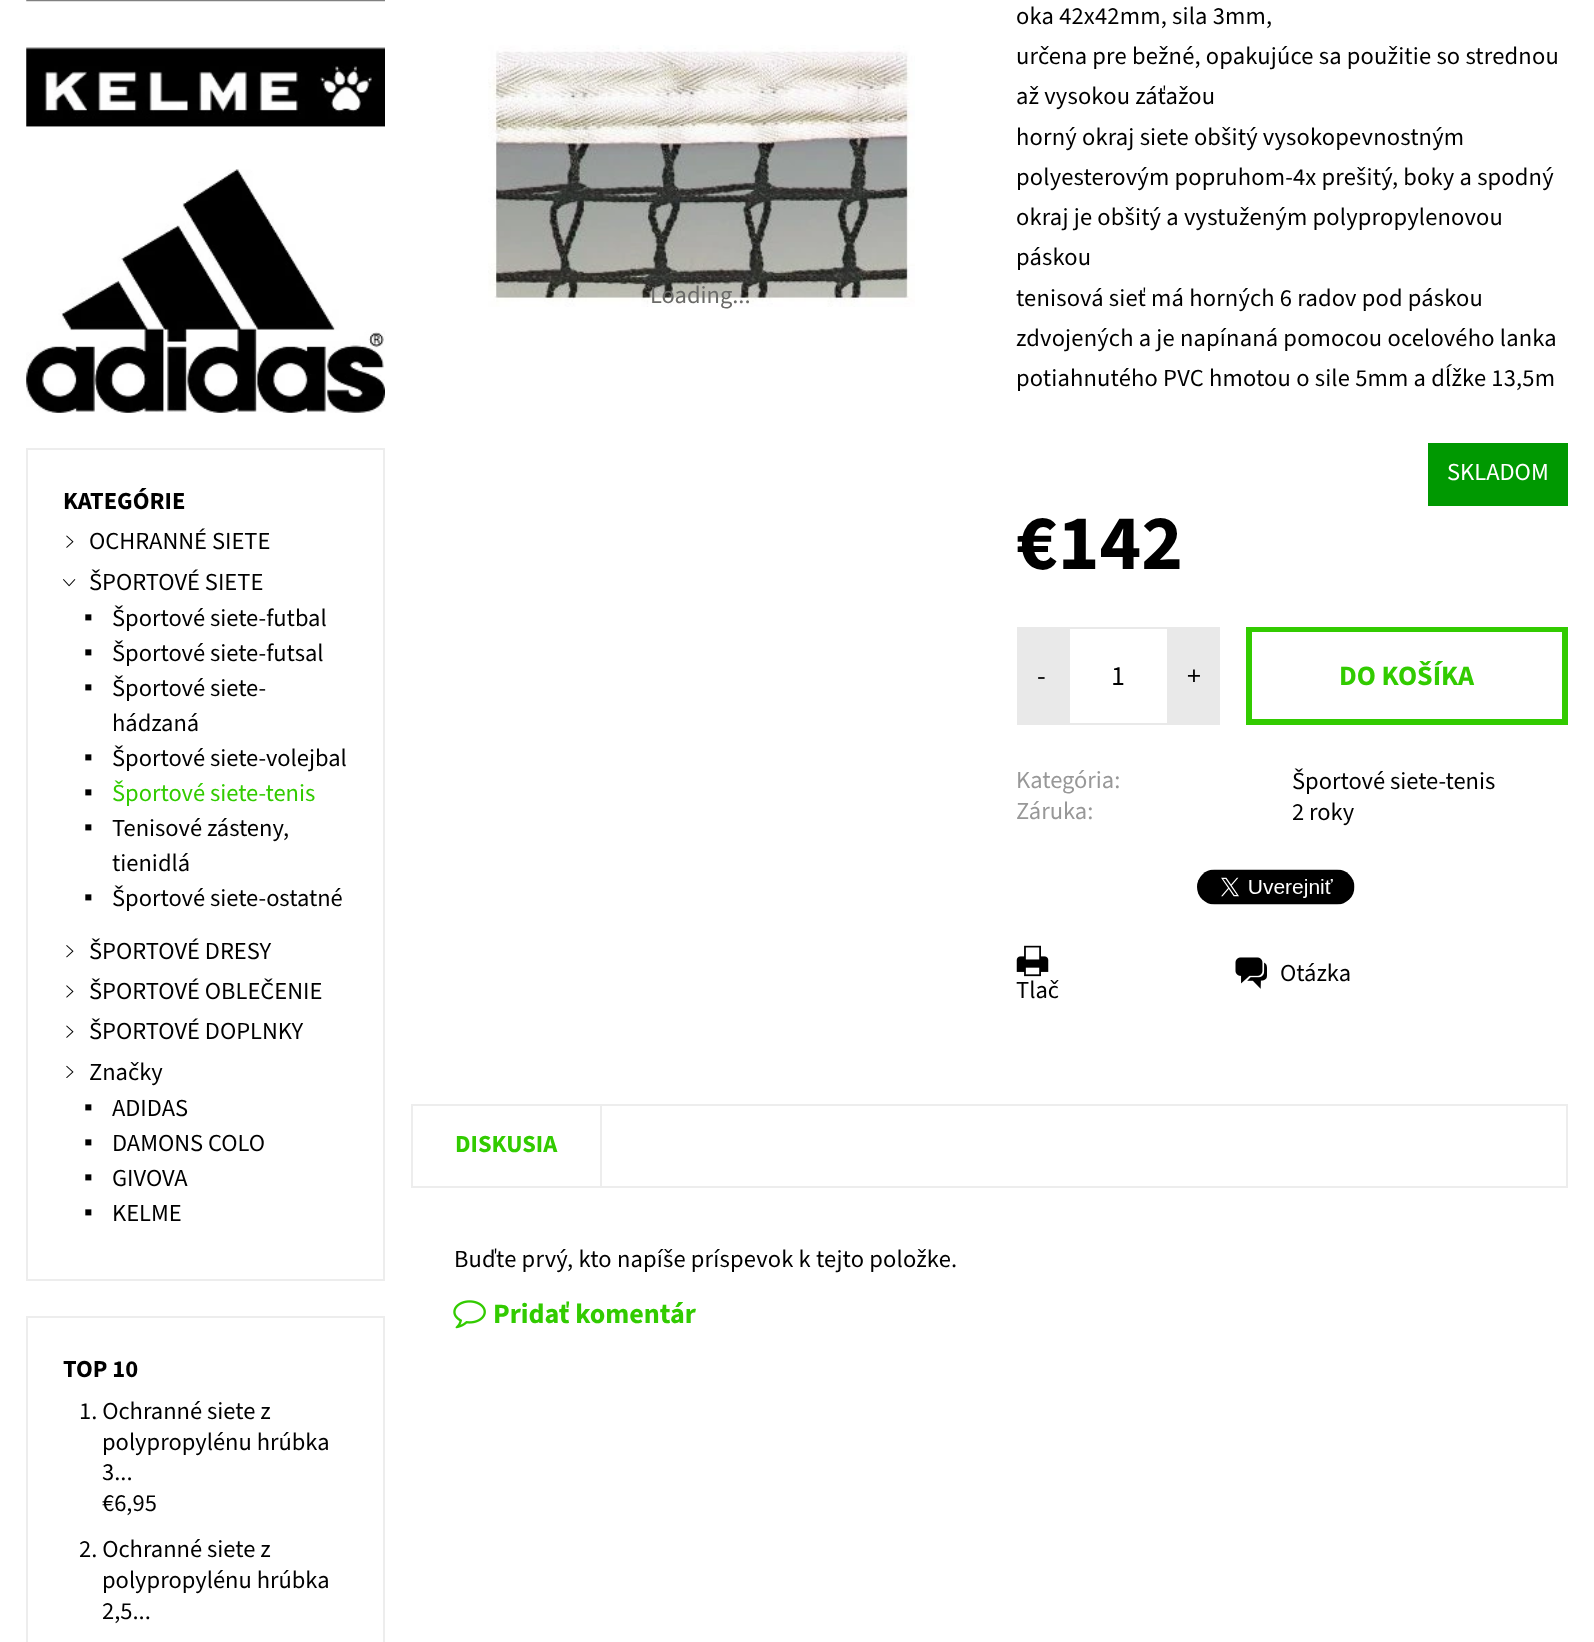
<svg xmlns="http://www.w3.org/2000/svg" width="1594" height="1642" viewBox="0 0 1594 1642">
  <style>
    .t1 { font: bold 24.5px 'Source Sans 3'; fill: #000; }
    .t2 { font: 24.5px 'Source Sans 3'; fill: #000; }
    .t3 { font: 24.5px Liberation Serif; fill: #000; }
    .t4 { font: 24.5px 'Source Sans 3'; fill: #32cb00; }
    .t5 { font: 24.5px 'Source Sans 3'; fill: #6a6a68; }
    .t6 { font: 24.5px 'Source Sans 3'; letter-spacing: 0.18px; fill: #000; }
    .t7 { font: 24.5px 'Source Sans 3'; fill: #fff; }
    .t8 { font: bold 79px 'Source Sans 3'; fill: #000; }
    .t9 { font: 28px 'Source Sans 3'; fill: #000; }
    .t10 { font: bold 28px 'Source Sans 3'; fill: #32cb00; }
    .t11 { font: 24.5px 'Source Sans 3'; fill: #989898; }
    .t12 { font: bold 24.5px 'Source Sans 3'; fill: #32cb00; }
  </style>
  <rect width="100%" height="100%" fill="#fff"/>
  <image x="26" y="0" width="359" height="2" href="images/1.png"/>
  <image x="26" y="47" width="359" height="80" href="images/2.png"/>
  <image x="26" y="169" width="359" height="244" href="images/3.png"/>
  <rect x="27" y="449" width="357" height="831" fill="none" stroke="#ededed" stroke-width="2"/>
  <text x="63" y="509" class="t1">KATEGÓRIE</text>
  <image x="66" y="535" width="8" height="13" href="images/4.png"/>
  <text x="89" y="549" class="t2">OCHRANNÉ SIETE</text>
  <image x="63" y="579" width="13" height="8" href="images/5.png"/>
  <text x="89" y="590" class="t2">ŠPORTOVÉ SIETE</text>
  <text x="84" y="625" class="t3">▪</text>
  <text x="112" y="626" class="t2">Športové siete-futbal</text>
  <text x="84" y="660" class="t3">▪</text>
  <text x="112" y="661" class="t2">Športové siete-futsal</text>
  <text x="84" y="695" class="t3">▪</text>
  <text x="112" y="696" class="t2">Športové siete-</text>
  <text x="112" y="731" class="t2">hádzaná</text>
  <text x="84" y="765" class="t3">▪</text>
  <text x="112" y="766" class="t2">Športové siete-volejbal</text>
  <text x="84" y="800" class="t3">▪</text>
  <text x="112" y="801" class="t4">Športové siete-tenis</text>
  <text x="84" y="835" class="t3">▪</text>
  <text x="112" y="836" class="t2">Tenisové zásteny,</text>
  <text x="112" y="871" class="t2">tienidlá</text>
  <text x="84" y="905" class="t3">▪</text>
  <text x="112" y="906" class="t2">Športové siete-ostatné</text>
  <image x="66" y="945" width="8" height="13" href="images/6.png"/>
  <text x="89" y="959" class="t2">ŠPORTOVÉ DRESY</text>
  <image x="66" y="985" width="8" height="13" href="images/7.png"/>
  <text x="89" y="999" class="t2">ŠPORTOVÉ OBLEČENIE</text>
  <image x="66" y="1025" width="8" height="13" href="images/4.png"/>
  <text x="89" y="1039" class="t2">ŠPORTOVÉ DOPLNKY</text>
  <image x="66" y="1065" width="8" height="13" href="images/8.png"/>
  <text x="89" y="1080" class="t2">Značky</text>
  <text x="84" y="1115" class="t3">▪</text>
  <text x="112" y="1116" class="t2">ADIDAS</text>
  <text x="84" y="1150" class="t3">▪</text>
  <text x="112" y="1151" class="t2">DAMONS COLO</text>
  <text x="84" y="1185" class="t3">▪</text>
  <text x="112" y="1186" class="t2">GIVOVA</text>
  <text x="84" y="1220" class="t3">▪</text>
  <text x="112" y="1221" class="t2">KELME</text>
  <rect x="27" y="1317" width="357" height="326" fill="none" stroke="#ededed" stroke-width="2"/>
  <text x="63" y="1377" class="t1">TOP 10</text>
  <text x="79" y="1419" class="t2">1. Ochranné siete z</text>
  <text x="102" y="1450" class="t2">polypropylénu hrúbka</text>
  <text x="102" y="1480" class="t2">3...</text>
  <text x="102" y="1511" class="t2">€6,95</text>
  <text x="79" y="1557" class="t2">2. Ochranné siete z</text>
  <text x="102" y="1588" class="t2">polypropylénu hrúbka</text>
  <text x="102" y="1619" class="t2">2,5...</text>
  <image x="488" y="45" width="427" height="262" href="images/9.png"/>
  <text x="650" y="303" class="t5">Loading...</text>
  <text x="1016" y="24" class="t6">oka 42x42mm, sila 3mm,</text>
  <text x="1016" y="64" class="t6">určena pre bežné, opakujúce sa použitie so strednou</text>
  <text x="1016" y="104" class="t6">až vysokou záťažou</text>
  <text x="1016" y="145" class="t6">horný okraj siete obšitý vysokopevnostným</text>
  <text x="1016" y="185" class="t6">polyesterovým popruhom-4x prešitý, boky a spodný</text>
  <text x="1016" y="225" class="t6">okraj je obšitý a vystuženým polypropylenovou</text>
  <text x="1016" y="265" class="t6">páskou</text>
  <text x="1016" y="306" class="t6">tenisová sieť má horných 6 radov pod páskou</text>
  <text x="1016" y="346" class="t6">zdvojených a je napínaná pomocou ocelového lanka</text>
  <text x="1016" y="386" class="t6">potiahnutého PVC hmotou o sile 5mm a dĺžke 13,5m</text>
  <rect x="1428" y="443" width="140" height="63" fill="#009901"/>
  <text x="1447" y="480" class="t7">SKLADOM</text>
  <text x="1016" y="569" class="t8">€142</text>
  <rect x="1017" y="627" width="51" height="98" fill="#e9e9e9"/>
  <text x="1037" y="685" class="t9">-</text>
  <rect x="1069" y="628" width="99" height="96" fill="none" stroke="#e9e9e9" stroke-width="2"/>
  <text x="1111" y="685" class="t9">1</text>
  <rect x="1169" y="627" width="51" height="98" fill="#e9e9e9"/>
  <text x="1187" y="685" class="t9">+</text>
  <rect x="1250" y="630" width="314" height="91" fill="none" stroke="#32cb00" stroke-width="4"/>
  <rect x="1247" y="628" width="320" height="96" fill="none" stroke="#32cb00" stroke-width="2"/>
  <text x="1339" y="685" class="t10">DO KOŠÍKA</text>
  <text x="1016" y="788" class="t11">Kategória:</text>
  <text x="1292" y="789" class="t2">Športové siete-tenis</text>
  <text x="1016" y="819" class="t11">Záruka:</text>
  <text x="1292" y="820" class="t2">2 roky</text>
  <image x="1197" y="869" width="158" height="36" href="images/10.png"/>
  <image x="1235" y="957" width="32" height="32" href="images/11.png"/>
  <text x="1280" y="981" class="t2">Otázka</text>
  <image x="1016" y="945" width="33" height="32" href="images/12.png"/>
  <text x="1016" y="998" class="t2">Tlač</text>
  <rect x="412" y="1105" width="1155" height="82" fill="none" stroke="#ededed" stroke-width="2"/>
  <rect x="600" y="1106" width="2" height="81" fill="#ededed"/>
  <text x="455" y="1152" class="t12">DISKUSIA</text>
  <text x="454" y="1267" class="t6">Buďte prvý, kto napíše príspevok k tejto položke.</text>
  <image x="453" y="1300" width="33" height="29" href="images/13.png"/>
  <text x="493" y="1323" class="t10">Pridať komentár</text>
</svg>
